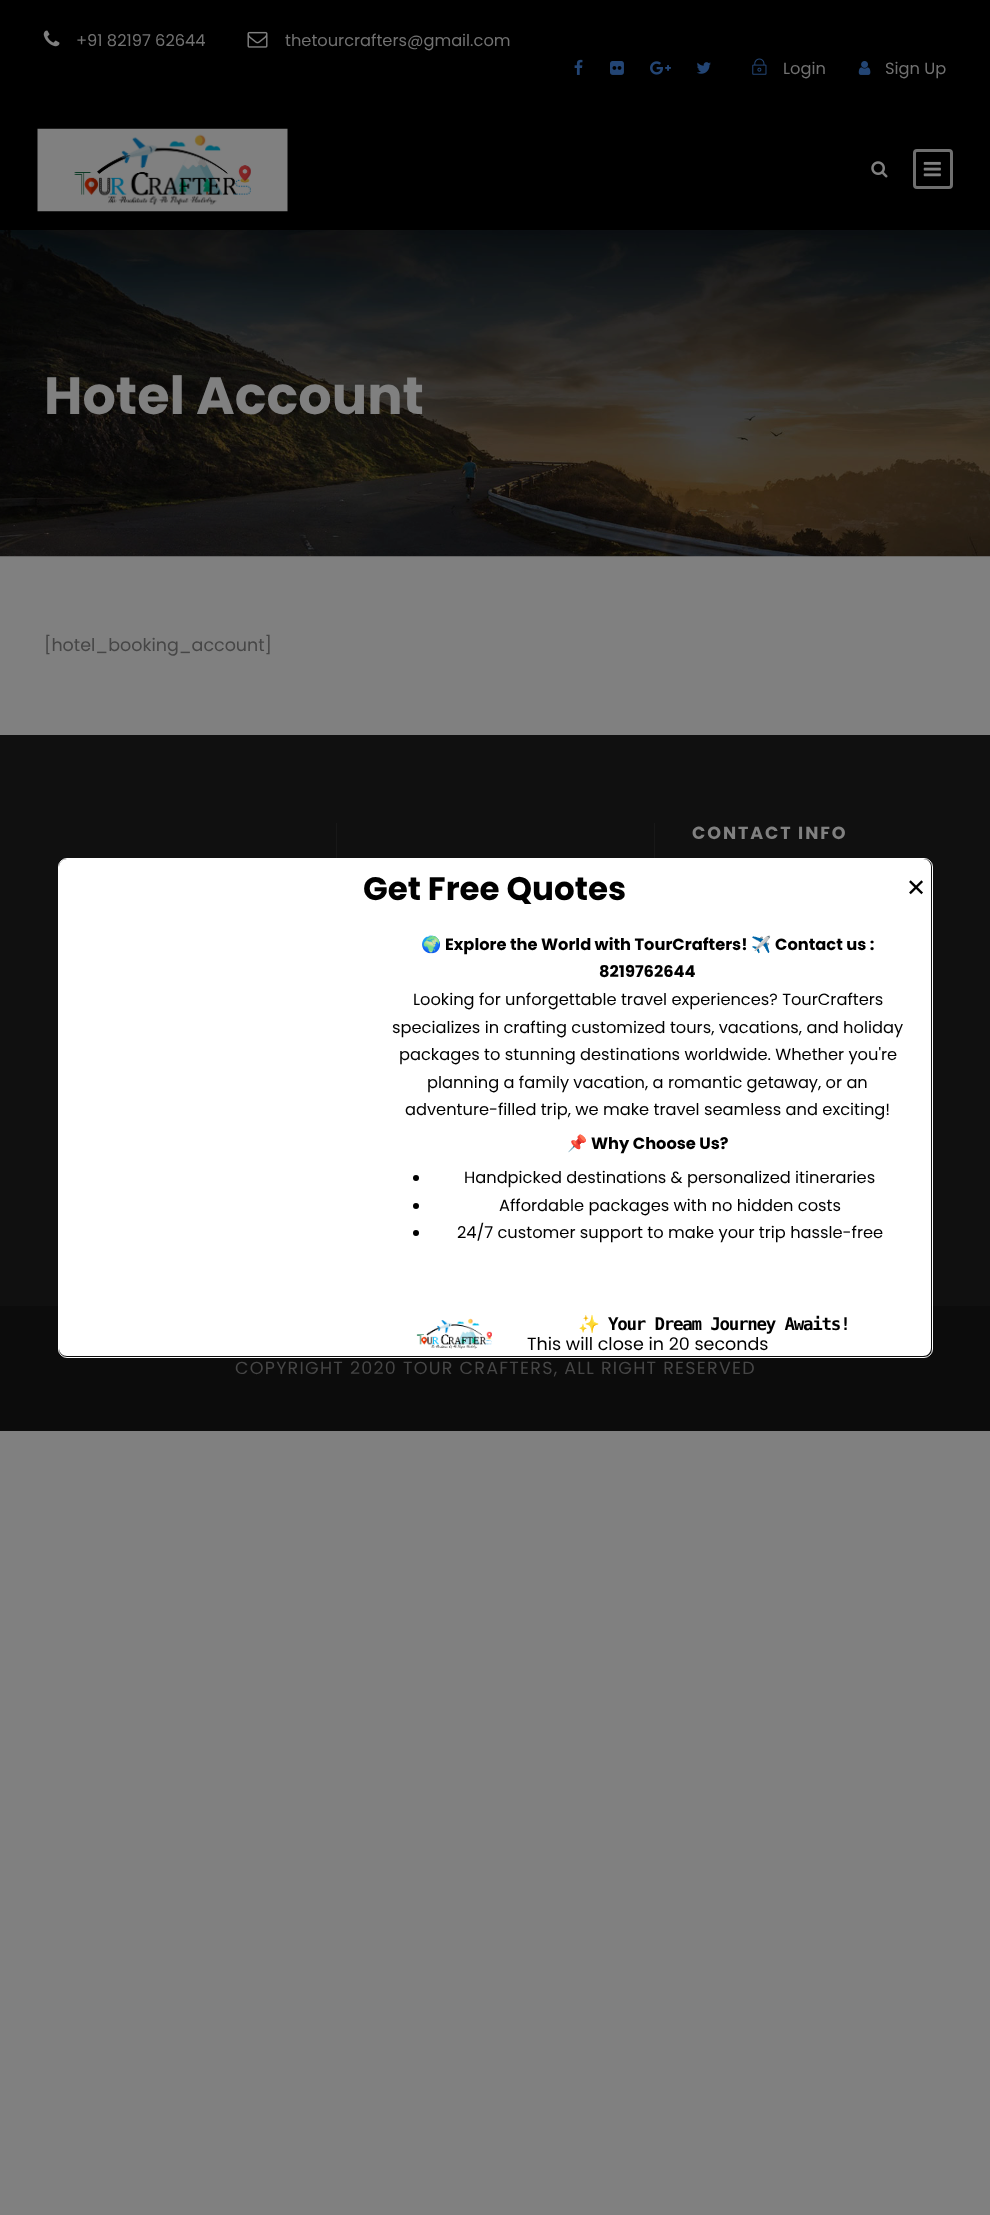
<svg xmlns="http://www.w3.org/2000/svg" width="990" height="2215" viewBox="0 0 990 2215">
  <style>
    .t1 { font: 16.25px Poppins; fill: #717171; }
    .t2 { font: bold 52.5px Poppins; fill: #808080; }
    .t3 { font: 17.5px Poppins; fill: #464646; }
    .t4 { font: bold 17.5px Poppins; letter-spacing: 1.9px; fill: #808080; }
    .t5 { font: 17.5px Poppins; letter-spacing: 1.25px; fill: #464646; }
    .t6 { font: bold 32.5px Poppins; fill: #000; }
    .t7 { font: 24px DejaVu Sans; fill: #000; }
    .t8 { font: bold 16.25px Noto Color Emoji; fill: #000; }
    .t9 { font: bold 16.25px Poppins; fill: #000; }
    .t10 { font: 16.25px Poppins; fill: #000; }
    .t11 { font: 16.25px Noto Color Emoji; fill: #000; }
    .t12 { font: 17.5px Noto Color Emoji; letter-spacing: -1.25px; fill: #000; }
    .t13 { font: bold 17.5px DejaVu Sans Mono; letter-spacing: -1.25px; fill: #000; }
    .t14 { font: 17.5px Poppins; fill: #000; }
  </style>
  <rect width="100%" height="100%" fill="#808080"/>
  <rect x="0" y="0" width="990" height="230" fill="#000"/>
  <image x="37" y="128" width="251" height="84" href="images/1.png"/>
  <image x="871" y="161" width="17" height="17" href="images/2.png"/>
  <rect x="914.5" y="150.5" width="37" height="37" rx="2.5" fill="none" stroke="#6f6f6f" stroke-width="3"/>
  <image x="923" y="161" width="18" height="16" href="images/3.png"/>
  <image x="43" y="30" width="17" height="17" href="images/4.png"/>
  <text x="76" y="46" class="t1">+91 82197 62644</text>
  <image x="247" y="31" width="21" height="17" href="images/5.png"/>
  <text x="285" y="46" class="t1">thetourcrafters@gmail.com</text>
  <image x="574" y="59" width="9" height="16" href="images/6.png"/>
  <image x="610" y="61" width="14" height="14" href="images/7.png"/>
  <image x="650" y="61" width="21" height="14" href="images/8.png"/>
  <image x="696" y="62" width="15" height="12" href="images/9.png"/>
  <image x="752" y="58" width="15" height="17" href="images/10.png"/>
  <text x="783" y="74" class="t1">Login</text>
  <image x="858" y="61" width="13" height="14" href="images/11.png"/>
  <text x="885" y="74" class="t1">Sign Up</text>
  <image x="0" y="230" width="990" height="327" href="images/12.png"/>
  <text x="44" y="414" class="t2">Hotel Account</text>
  <text x="44" y="651" class="t3">[hotel_booking_account]</text>
  <rect x="0" y="735" width="990" height="571" fill="#101010"/>
  <rect x="336" y="823" width="1" height="35" fill="#181818"/>
  <rect x="654" y="823" width="1" height="35" fill="#181818"/>
  <text x="692" y="839" class="t4">CONTACT INFO</text>
  <rect x="0" y="1306" width="990" height="125" fill="#0c0c0c"/>
  <text x="235" y="1374" class="t5">COPYRIGHT 2020 TOUR CRAFTERS, ALL RIGHT RESERVED</text>
  <rect x="58.5" y="858.5" width="874" height="499" rx="8.5" fill="none" stroke="#fff"/>
  <path d="M67 859H923C927.5 859 931 862.5 931 867V919H59V867C59 862.5 62.5 859 67 859Z" fill="#fff"/>
  <text x="363" y="900" class="t6">Get Free Quotes</text>
  <text x="906" y="896" class="t7">✕</text>
  <path d="M59 919H931V1348C931 1352.5 927.5 1356 923 1356H67C62.5 1356 59 1352.5 59 1348Z" fill="#fff"/>
  <text x="421" y="950" class="t8">🌍</text>
  <text x="445" y="950" class="t9">Explore the World with TourCrafters!</text>
  <text x="751" y="950" class="t8">✈️</text>
  <text x="775" y="950" class="t9">Contact us :</text>
  <text x="599" y="977" class="t9">8219762644</text>
  <text x="413" y="1005" class="t10">Looking for unforgettable travel experiences? TourCrafters</text>
  <text x="392" y="1033" class="t10">specializes in crafting customized tours, vacations, and holiday</text>
  <text x="399" y="1060" class="t10">packages to stunning destinations worldwide. Whether you're</text>
  <text x="427" y="1088" class="t10">planning a family vacation, a romantic getaway, or an</text>
  <text x="405" y="1115" class="t10">adventure-filled trip, we make travel seamless and exciting!</text>
  <text x="567" y="1149" class="t11">📌</text>
  <text x="591" y="1149" class="t9">Why Choose Us?</text>
  <circle cx="416" cy="1178" r="3" fill="#000"/>
  <text x="464" y="1183" class="t10">Handpicked destinations &amp; personalized itineraries</text>
  <circle cx="416" cy="1206" r="3" fill="#000"/>
  <text x="499" y="1211" class="t10">Affordable packages with no hidden costs</text>
  <circle cx="416" cy="1233" r="3" fill="#000"/>
  <text x="457" y="1238" class="t10">24/7 customer support to make your trip hassle-free</text>
  <text x="578" y="1330" class="t12">✨</text>
  <image x="416" y="1318" width="76" height="31" href="images/13.png"/>
  <text x="608" y="1330" class="t13">Your Dream Journey Awaits!</text>
  <text x="527" y="1350" class="t14">This will close in 20 seconds</text>
</svg>
